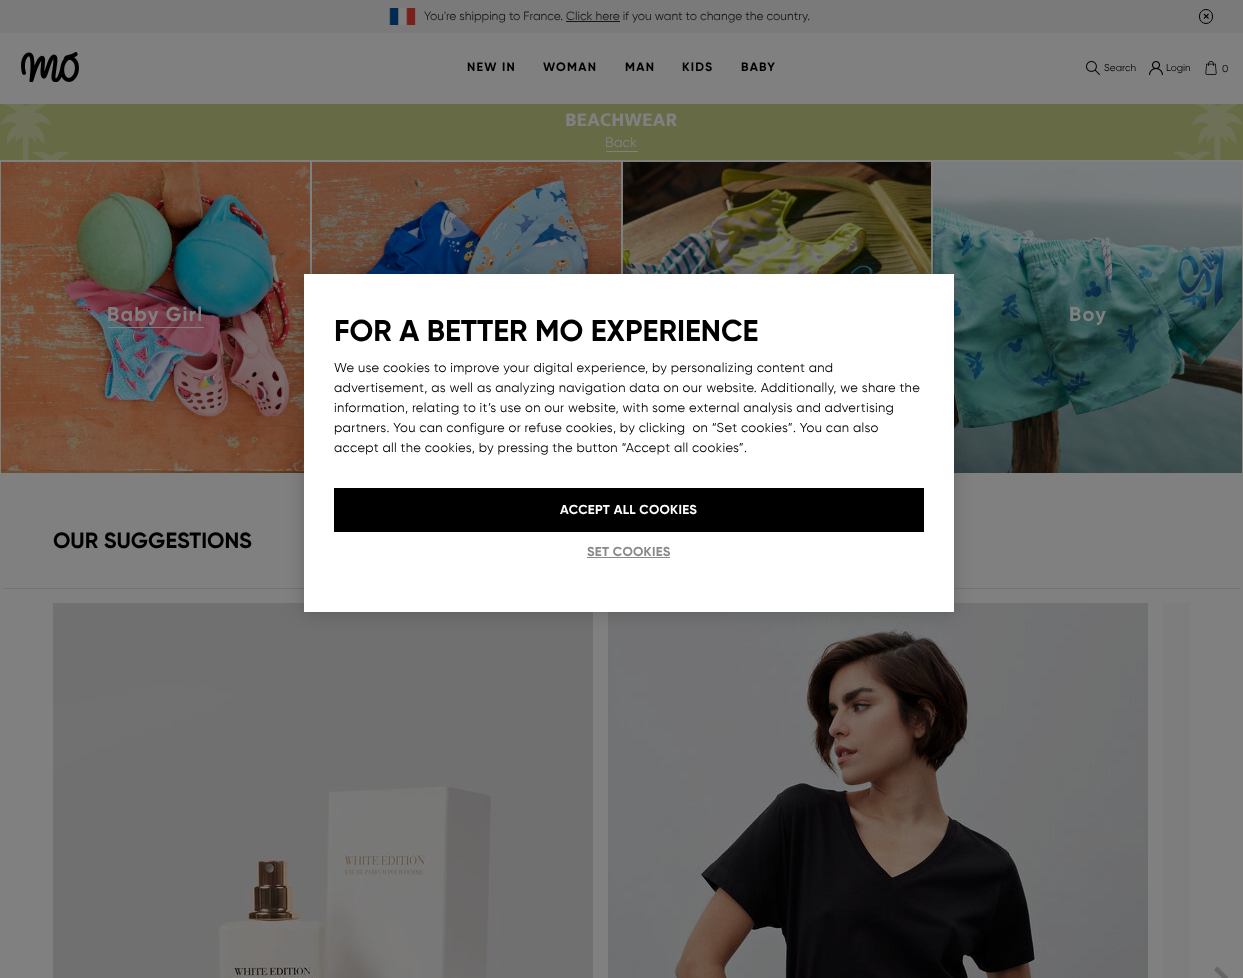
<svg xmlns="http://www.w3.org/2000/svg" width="1243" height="978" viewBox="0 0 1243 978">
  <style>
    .t1 { font: 12px Gilroy; fill: #171717; }
    .t2 { font: bold 13px 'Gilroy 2'; fill: #000; }
    .t3 { font: bold 12.25px Gilroy; letter-spacing: 1.25px; fill: #000; }
    .t4 { font: 10px Gilroy; fill: #000; }
    .t5 { font: 800 20px Mukta Mahee; fill: #808080; }
    .t6 { font: 14px Gilroy; fill: #808080; }
    .t7 { font: bold 20px Gilroy; letter-spacing: 1.25px; fill: #808080; }
    .t8 { font: bold 22px Gilroy; fill: #000; }
    .t9 { font: bold 30px Gilroy; fill: #000; }
    .t10 { font: 13px Gilroy; letter-spacing: 0.3px; fill: #000; }
    .t11 { font: bold 13px Gilroy; letter-spacing: 0.3px; fill: #fff; }
    .t12 { font: bold 13px Gilroy; letter-spacing: 0.3px; fill: #888; }
  </style>
  <rect width="100%" height="100%" fill="#808080"/>
  <rect x="0" y="0" width="1243" height="33" fill="#7a7a7a"/>
  <image x="389" y="8" width="27" height="17" href="images/1.png"/>
  <text x="424" y="20" class="t1">You're shipping to France. Click here if you want to change the country.</text>
  <rect x="566" y="21" width="54" height="1" fill="#171717"/>
  <rect x="1199.5" y="9.5" width="13" height="14" rx="6.5" fill="none" stroke="#000"/>
  <text x="1203" y="21" class="t2">×</text>
  <image x="21" y="52" width="58" height="30" href="images/2.png"/>
  <text x="467" y="71" class="t3">NEW IN</text>
  <text x="543" y="71" class="t3">WOMAN</text>
  <text x="625" y="71" class="t3">MAN</text>
  <text x="682" y="71" class="t3">KIDS</text>
  <text x="741" y="71" class="t3">BABY</text>
  <image x="1086" y="61" width="14" height="14" href="images/3.png"/>
  <text x="1104" y="71" class="t4">Search</text>
  <image x="1149" y="61" width="14" height="14" href="images/4.png"/>
  <text x="1166" y="71" class="t4">Login</text>
  <image x="1205" y="61" width="12" height="14" href="images/5.png"/>
  <text x="1222" y="72" class="t4">0</text>
  <rect x="0" y="104" width="1243" height="56" fill="#666b45"/>
  <image x="0" y="104" width="1243" height="56" href="images/6.png"/>
  <text x="565" y="126" class="t5">BEACHWEAR</text>
  <text x="605" y="147" class="t6">Back</text>
  <rect x="606" y="151" width="32" height="1" fill="#808080"/>
  <image x="312" y="162" width="309" height="112" href="images/7.png"/>
  <image x="623" y="162" width="308" height="112" href="images/8.png"/>
  <image x="1" y="162" width="309" height="311" href="images/9.png"/>
  <text x="107" y="321" class="t7">Baby Girl</text>
  <rect x="108" y="327" width="96" height="1" fill="#808080"/>
  <image x="933" y="162" width="309" height="311" href="images/10.png"/>
  <text x="1069" y="321" class="t7">Boy</text>
  <text x="53" y="548" class="t8">OUR SUGGESTIONS</text>
  <rect x="3" y="588" width="1237" height="1" fill="#737373"/>
  <image x="53" y="603" width="540" height="375" href="images/11.png"/>
  <image x="608" y="603" width="540" height="375" href="images/12.png"/>
  <rect x="1163" y="603" width="27" height="375" fill="#7d7d7d"/>
  <image x="1214" y="966" width="14" height="12" href="images/13.png"/>
  <rect x="304" y="274" width="650" height="338" fill="#00000033" filter="blur(9px)"/>
  <rect x="304" y="274" width="650" height="338" fill="#fff"/>
  <text x="334" y="341" class="t9">FOR A BETTER MO EXPERIENCE</text>
  <text x="334" y="372" class="t10">We use cookies to improve your digital experience, by personalizing content and</text>
  <text x="334" y="392" class="t10">advertisement, as well as analyzing navigation data on our website. Additionally, we share the</text>
  <text x="334" y="412" class="t10">information, relating to it’s use on our website, with some external analysis and advertising</text>
  <text x="334" y="432" class="t10" xml:space="preserve">partners. You can configure or refuse cookies, by clicking  on “Set cookies”. You can also</text>
  <text x="334" y="452" class="t10">accept all the cookies, by pressing the button “Accept all cookies”.</text>
  <rect x="334" y="488" width="590" height="44" fill="#000"/>
  <text x="560" y="514" class="t11">ACCEPT ALL COOKIES</text>
  <text x="587" y="556" class="t12">SET COOKIES</text>
  <rect x="587" y="557" width="83" height="1" fill="#888"/>
</svg>
